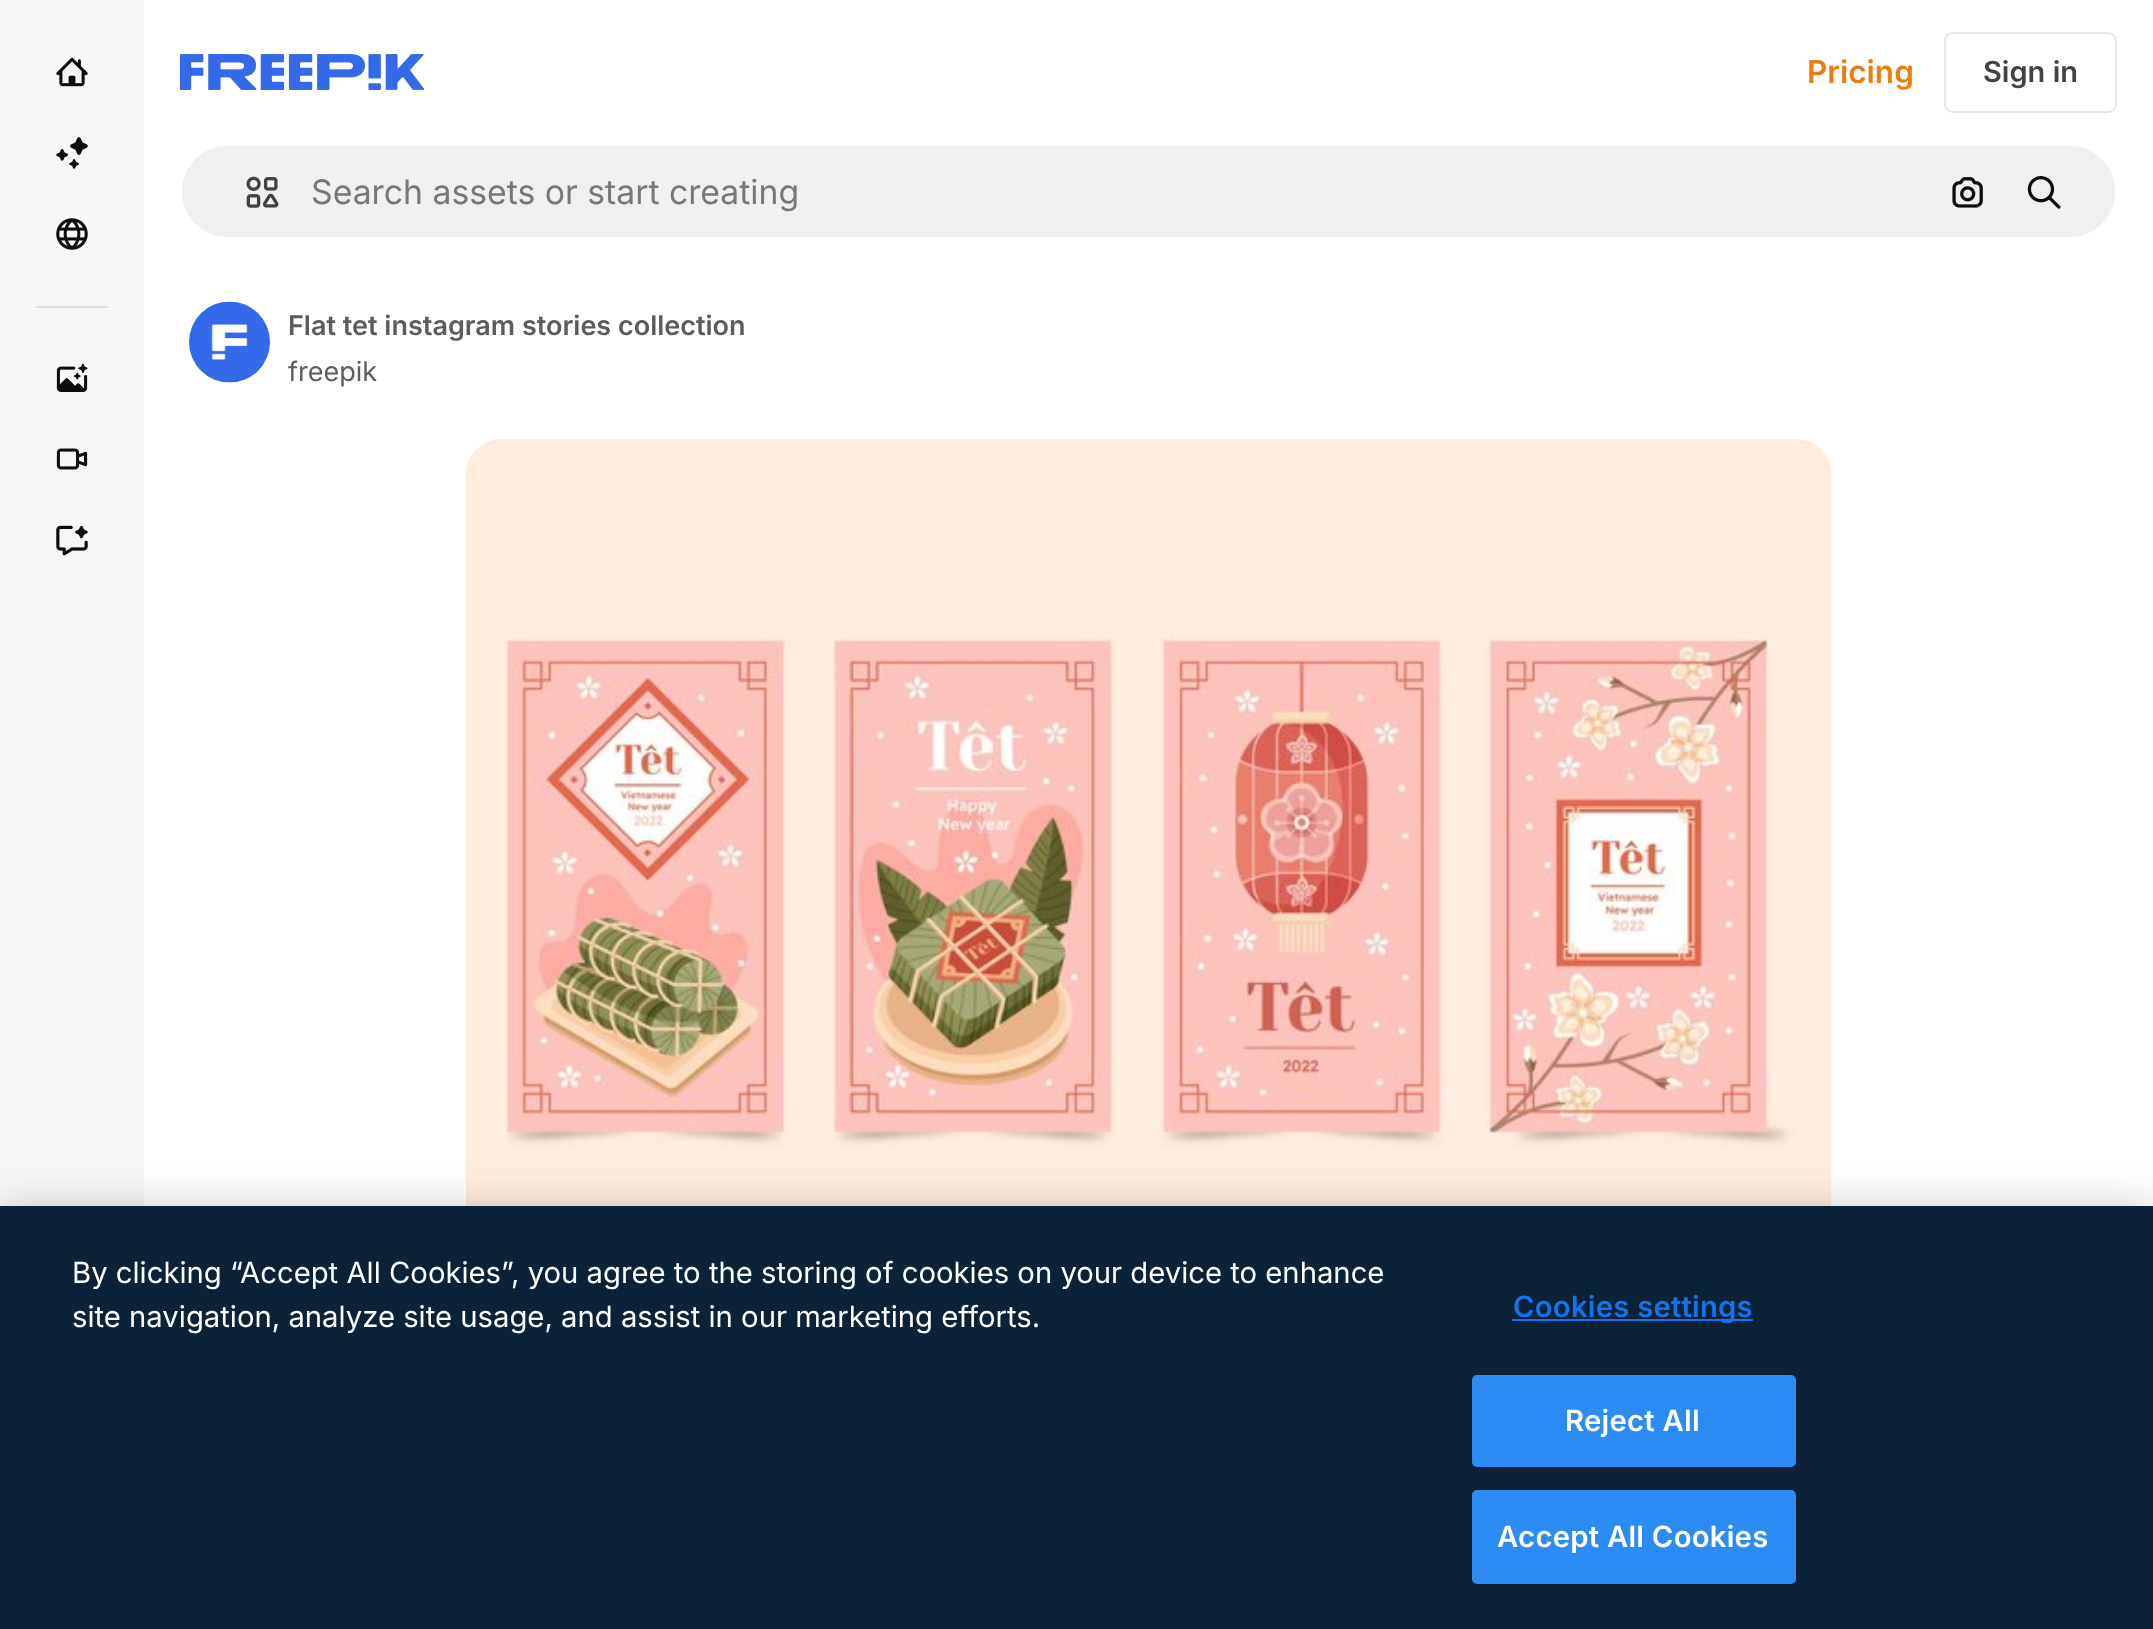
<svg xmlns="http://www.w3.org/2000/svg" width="2153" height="1629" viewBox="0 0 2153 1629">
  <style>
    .t1 { font: 600 31.5px Inter; fill: #ea7e11; }
    .t2 { font: 600 29px Inter; fill: #424242; }
    .t3 { font: 33.75px Inter; fill: #777; }
    .t4 { font: 600 27px Inter; fill: #5c5c5c; }
    .t5 { font: 27px Inter; fill: #5c5c5c; }
    .t6 { font: 29.25px Inter; fill: #fff; }
    .t7 { font: 600 29.25px Inter; letter-spacing: 0.25px; fill: #1273eb; }
    .t8 { font: 600 29.25px Inter; letter-spacing: 0.25px; fill: #fff; }
  </style>
  <rect width="100%" height="100%" fill="#fff"/>
  <rect x="0" y="0" width="144" height="1206" fill="#f7f7f7"/>
  <image x="56" y="57" width="32" height="30" href="images/1.png"/>
  <image x="56" y="137" width="32" height="32" href="images/2.png"/>
  <image x="56" y="218" width="32" height="32" href="images/3.png"/>
  <rect x="36" y="306" width="72" height="2" fill="#e0e0e0"/>
  <image x="56" y="363" width="32" height="29" href="images/4.png"/>
  <image x="56" y="448" width="32" height="22" href="images/5.png"/>
  <image x="56" y="525" width="32" height="31" href="images/6.png"/>
  <image x="180" y="54" width="245" height="36" href="images/7.png"/>
  <text x="1807" y="83" class="t1">Pricing</text>
  <rect x="1945" y="33" width="171" height="79" rx="8" fill="none" stroke="#e7e7e7" stroke-width="2"/>
  <text x="1983" y="82" class="t2">Sign in</text>
  <rect x="181" y="145" width="1935" height="93" rx="46.5" fill="#f0f0f0" stroke="#fff" stroke-width="2"/>
  <image x="246" y="176" width="33" height="32" href="images/8.png"/>
  <text x="311" y="204" class="t3">Search assets or start creating</text>
  <image x="1952" y="177" width="31" height="31" href="images/9.png"/>
  <image x="2027" y="176" width="34" height="33" href="images/10.png"/>
  <image x="189" y="301" width="81" height="82" href="images/11.png"/>
  <text x="288" y="335" class="t4">Flat tet instagram stories collection</text>
  <text x="288" y="381" class="t5">freepik</text>
  <image x="466" y="439" width="1366" height="767" href="images/12.png"/>
  <rect x="0" y="1206" width="2153" height="423" fill="#00000033" filter="blur(20px)"/>
  <rect x="0" y="1206" width="2153" height="423" fill="#0b2239"/>
  <text x="72" y="1283" class="t6">By clicking “Accept All Cookies”, you agree to the storing of cookies on your device to enhance</text>
  <text x="72" y="1327" class="t6">site navigation, analyze site usage, and assist in our marketing efforts.</text>
  <rect x="1512" y="1319" width="241" height="2" fill="#1273eb"/>
  <text x="1513" y="1317" class="t7">Cookies settings</text>
  <rect x="1473" y="1376" width="322" height="90" rx="4" fill="#2c8cf4" stroke="#2c8cf4" stroke-width="2"/>
  <text x="1565" y="1431" class="t8">Reject All</text>
  <rect x="1473" y="1491" width="322" height="92" rx="4" fill="#2c8cf4" stroke="#2c8cf4" stroke-width="2"/>
  <text x="1497" y="1547" class="t8">Accept All Cookies</text>
</svg>
